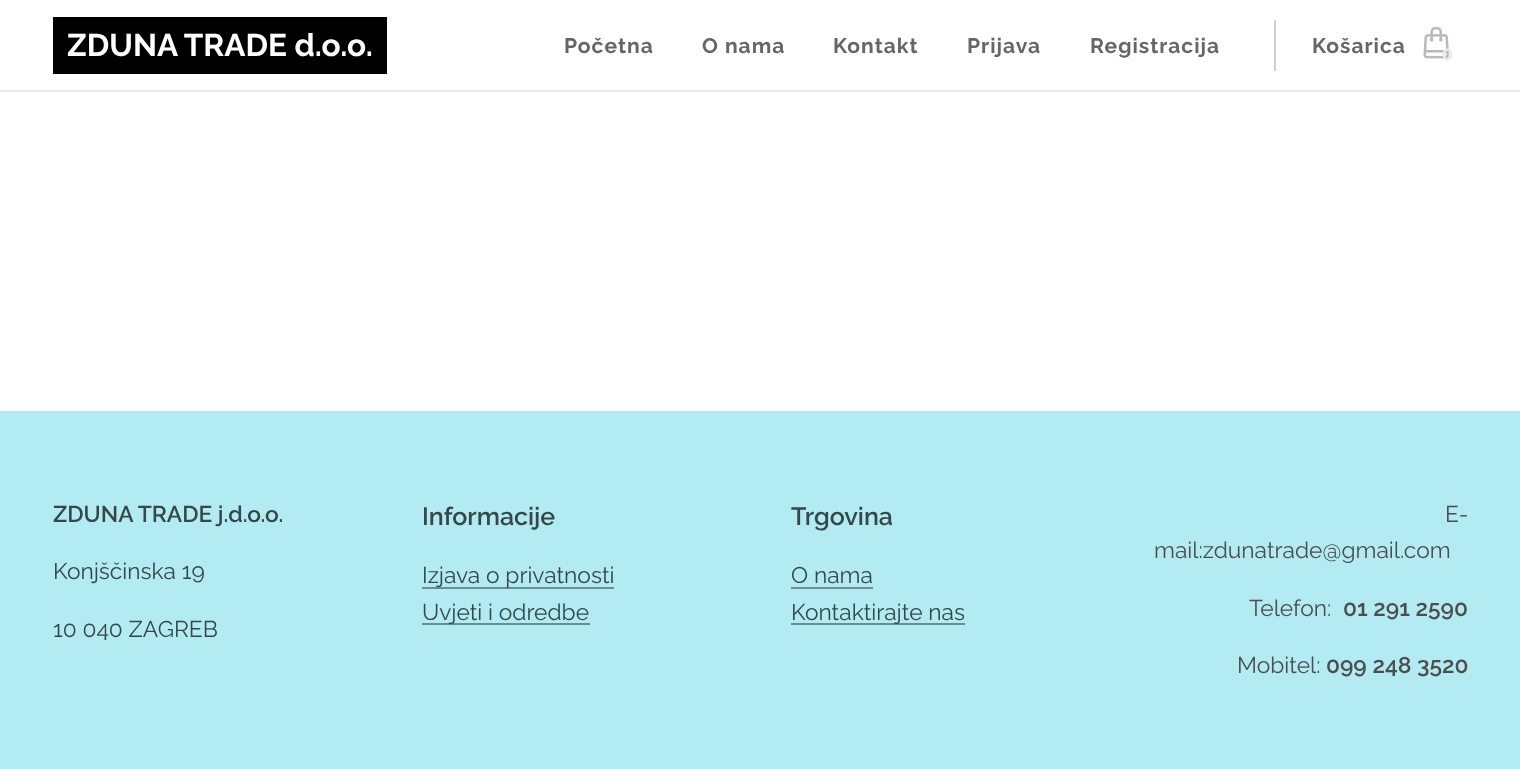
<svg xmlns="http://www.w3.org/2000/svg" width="1520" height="769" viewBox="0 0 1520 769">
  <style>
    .t1 { font: bold 31.5px Raleway; fill: #fff; }
    .t2 { font: bold 21px Raleway; letter-spacing: 1px; fill: #666; }
    .t3 { font: bold 16px Montserrat; fill: #ebebeb; }
    .t4 { font: 600 22.75px Raleway; fill: #354749; }
    .t5 { font: 22.75px Raleway; fill: #354749; }
    .t6 { font: 600 25px Raleway; fill: #354749; }
    .t7 { font: 22.75px Raleway; fill: #4d4d4d; }
    .t8 { font: 600 22.75px Raleway; fill: #4d4d4d; }
  </style>
  <rect width="100%" height="100%" fill="#fff"/>
  <rect x="0" y="90" width="1520" height="2" fill="#e8e8e8"/>
  <rect x="53" y="17" width="334" height="57" fill="#000"/>
  <text x="67" y="56" class="t1">ZDUNA TRADE d.o.o.</text>
  <text x="564" y="53" class="t2">Početna</text>
  <text x="702" y="53" class="t2">O nama</text>
  <text x="833" y="53" class="t2">Kontakt</text>
  <text x="967" y="53" class="t2">Prijava</text>
  <text x="1090" y="53" class="t2">Registracija</text>
  <rect x="1274" y="20" width="2" height="51" fill="#d1d1d1"/>
  <text x="1312" y="53" class="t2">Košarica</text>
  <image x="1423" y="26" width="26" height="33" href="images/1.png"/>
  <text x="1442" y="60" class="t3">0</text>
  <rect x="0" y="411" width="1520" height="358" fill="#b2ebf2"/>
  <text x="53" y="522" class="t4">ZDUNA TRADE j.d.o.o.</text>
  <text x="53" y="579" class="t5">Konjščinska 19</text>
  <text x="53" y="637" class="t5">10 040 ZAGREB</text>
  <text x="422" y="525" class="t6">Informacije</text>
  <rect x="422" y="587" width="192" height="2" fill="#6b8d91"/>
  <text x="422" y="583" class="t5">Izjava o privatnosti</text>
  <rect x="422" y="623" width="168" height="2" fill="#6b8d91"/>
  <text x="422" y="620" class="t5">Uvjeti i odredbe</text>
  <text x="791" y="525" class="t6">Trgovina</text>
  <text x="791" y="583" class="t5">O nama</text>
  <rect x="791" y="587" width="82" height="2" fill="#6b8d91"/>
  <rect x="791" y="623" width="174" height="2" fill="#6b8d91"/>
  <text x="791" y="620" class="t5">Kontaktirajte nas</text>
  <text x="1445" y="522" class="t7">E-</text>
  <text x="1154" y="558" class="t7">mail:zdunatrade@gmail.com</text>
  <text x="1249" y="616" class="t7">Telefon:</text>
  <text x="1343" y="616" class="t8">01 291 2590</text>
  <text x="1237" y="673" class="t7">Mobitel:</text>
  <text x="1326" y="673" class="t8">099 248 3520</text>
</svg>
